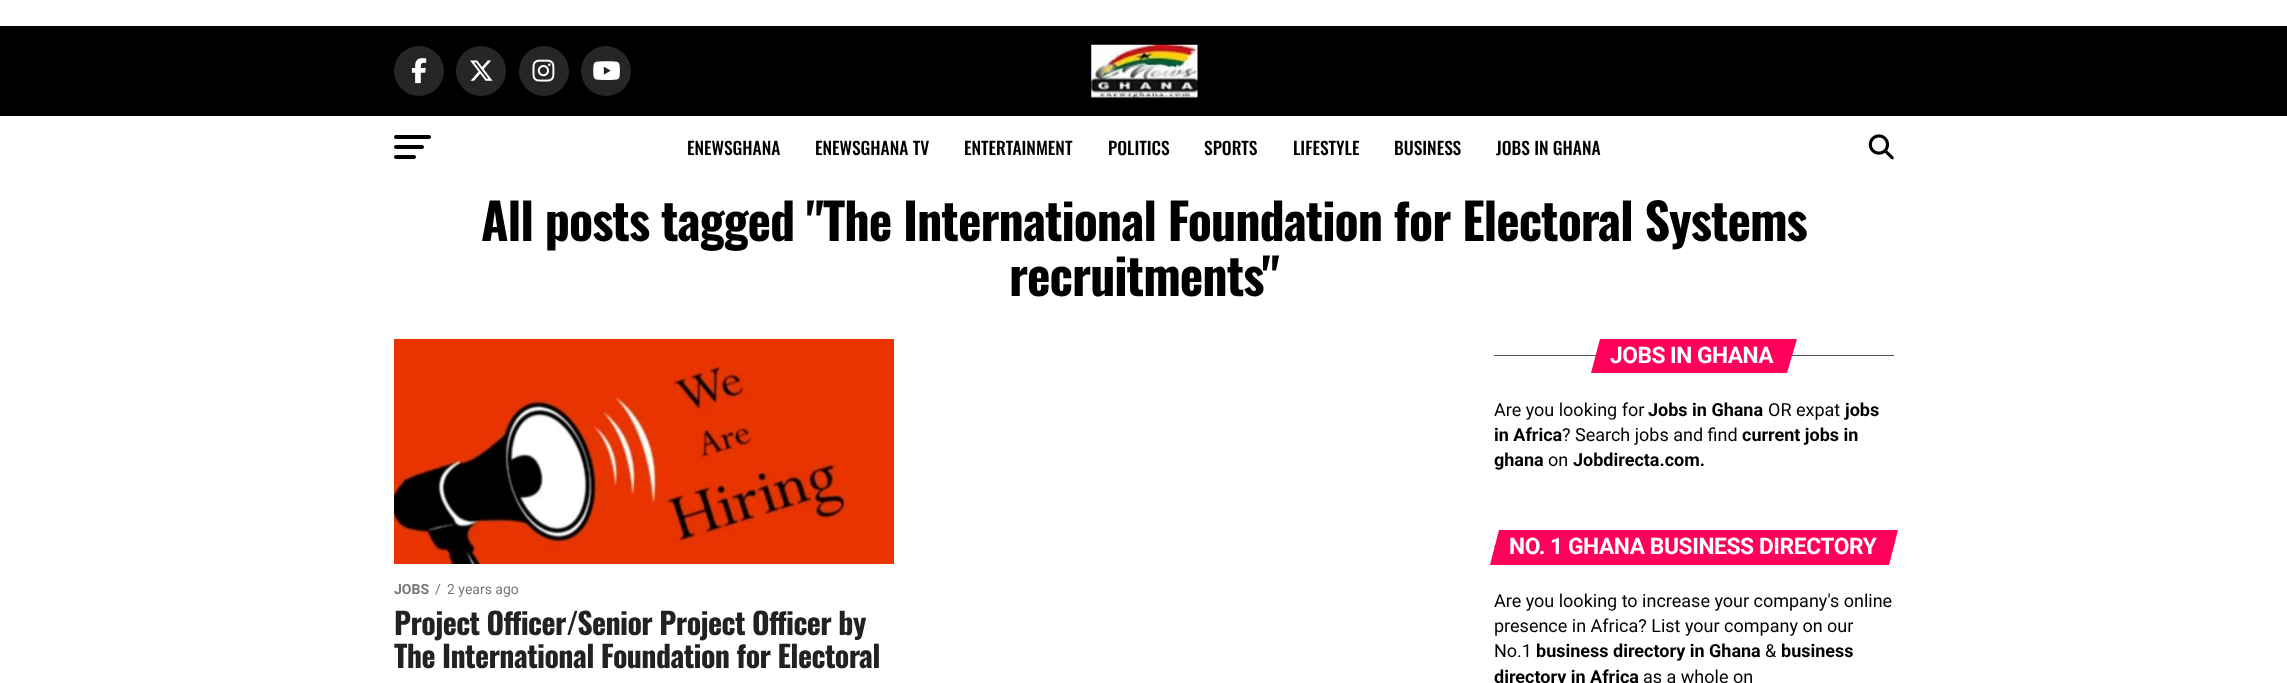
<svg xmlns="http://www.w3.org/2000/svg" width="2287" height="683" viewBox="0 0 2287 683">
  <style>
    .t1 { font: 500 17.5px Oswald; fill: #000; }
    .t2 { font: bold 50px Oswald; letter-spacing: -1px; fill: #000; }
    .t3 { font: bold 14px Roboto; fill: #777; }
    .t4 { font: 14px Roboto; fill: #777; }
    .t5 { font: bold 30px Oswald; letter-spacing: -0.6px; fill: #222; }
    .t6 { font: bold 22.75px Roboto; letter-spacing: -0.5px; fill: #fff; }
    .t7 { font: 18px Roboto; fill: #000; }
    .t8 { font: bold 18px Roboto; fill: #000; }
    .t9 { font: bold 22.75px Roboto; letter-spacing: -0.4px; fill: #fff; }
  </style>
  <rect width="100%" height="100%" fill="#fff"/>
  <rect x="0" y="26" width="2287" height="90" fill="#000"/>
  <circle cx="419" cy="71" r="25" fill="#262626"/>
  <image x="411" y="58" width="16" height="26" href="images/1.png"/>
  <circle cx="481" cy="71" r="25" fill="#262626"/>
  <image x="470" y="60" width="23" height="21" href="images/2.png"/>
  <circle cx="544" cy="71" r="25" fill="#262626"/>
  <image x="532" y="59" width="23" height="23" href="images/3.png"/>
  <circle cx="606" cy="71" r="25" fill="#262626"/>
  <image x="593" y="61" width="27" height="19" href="images/4.png"/>
  <image x="1091" y="44" width="107" height="54" href="images/5.png"/>
  <rect x="394" y="135" width="37" height="4" rx="2" fill="#000"/>
  <rect x="394" y="145" width="30" height="4" rx="2" fill="#000"/>
  <rect x="394" y="155" width="22" height="4" rx="2" fill="#000"/>
  <text x="687" y="155" class="t1">ENEWSGHANA</text>
  <text x="815" y="155" class="t1">ENEWSGHANA TV</text>
  <text x="964" y="155" class="t1">ENTERTAINMENT</text>
  <text x="1108" y="155" class="t1">POLITICS</text>
  <text x="1204" y="155" class="t1">SPORTS</text>
  <text x="1293" y="155" class="t1">LIFESTYLE</text>
  <text x="1394" y="155" class="t1">BUSINESS</text>
  <text x="1496" y="155" class="t1">JOBS IN GHANA</text>
  <image x="1868" y="134" width="26" height="26" href="images/6.png"/>
  <text x="481" y="241" class="t2">All posts tagged "The International Foundation for Electoral Systems</text>
  <text x="1009" y="296" class="t2">recruitments"</text>
  <image x="394" y="339" width="500" height="225" href="images/7.png"/>
  <text x="394" y="594" class="t3">JOBS</text>
  <text x="435" y="594" class="t4">/</text>
  <text x="447" y="594" class="t4">2 years ago</text>
  <text x="394" y="635" class="t5">Project Officer/Senior Project Officer by</text>
  <text x="394" y="668" class="t5">The International Foundation for Electoral</text>
  <rect x="1494" y="355" width="400" height="1" fill="#555"/>
  <path d="M1600 339H1797L1787 373H1591Z" fill="#ff005b"/>
  <text x="1610" y="363" class="t6">JOBS IN GHANA</text>
  <text x="1494" y="416" class="t7">Are you looking for</text>
  <text x="1648" y="416" class="t8">Jobs in Ghana</text>
  <text x="1768" y="416" class="t7">OR expat</text>
  <text x="1845" y="416" class="t8">jobs</text>
  <text x="1494" y="441" class="t8">in Africa</text>
  <text x="1562" y="441" class="t7">? Search jobs and find</text>
  <text x="1742" y="441" class="t8">current jobs in</text>
  <text x="1494" y="466" class="t8">ghana</text>
  <text x="1548" y="466" class="t7">on</text>
  <text x="1573" y="466" class="t8">Jobdirecta.com.</text>
  <rect x="1494" y="546" width="400" height="1" fill="#555"/>
  <path d="M1499 530H1898L1889 565H1490Z" fill="#ff005b"/>
  <text x="1509" y="554" class="t9">NO. 1 GHANA BUSINESS DIRECTORY</text>
  <text x="1494" y="607" class="t7">Are you looking to increase your company's online</text>
  <text x="1494" y="632" class="t7">presence in Africa? List your company on our</text>
  <text x="1494" y="657" class="t7">No.1</text>
  <text x="1536" y="657" class="t8">business directory in Ghana</text>
  <text x="1765" y="657" class="t7">&amp;</text>
  <text x="1781" y="657" class="t8">business</text>
  <text x="1494" y="683" class="t8">directory in Africa</text>
  <text x="1643" y="683" class="t7">as a whole on</text>
</svg>
